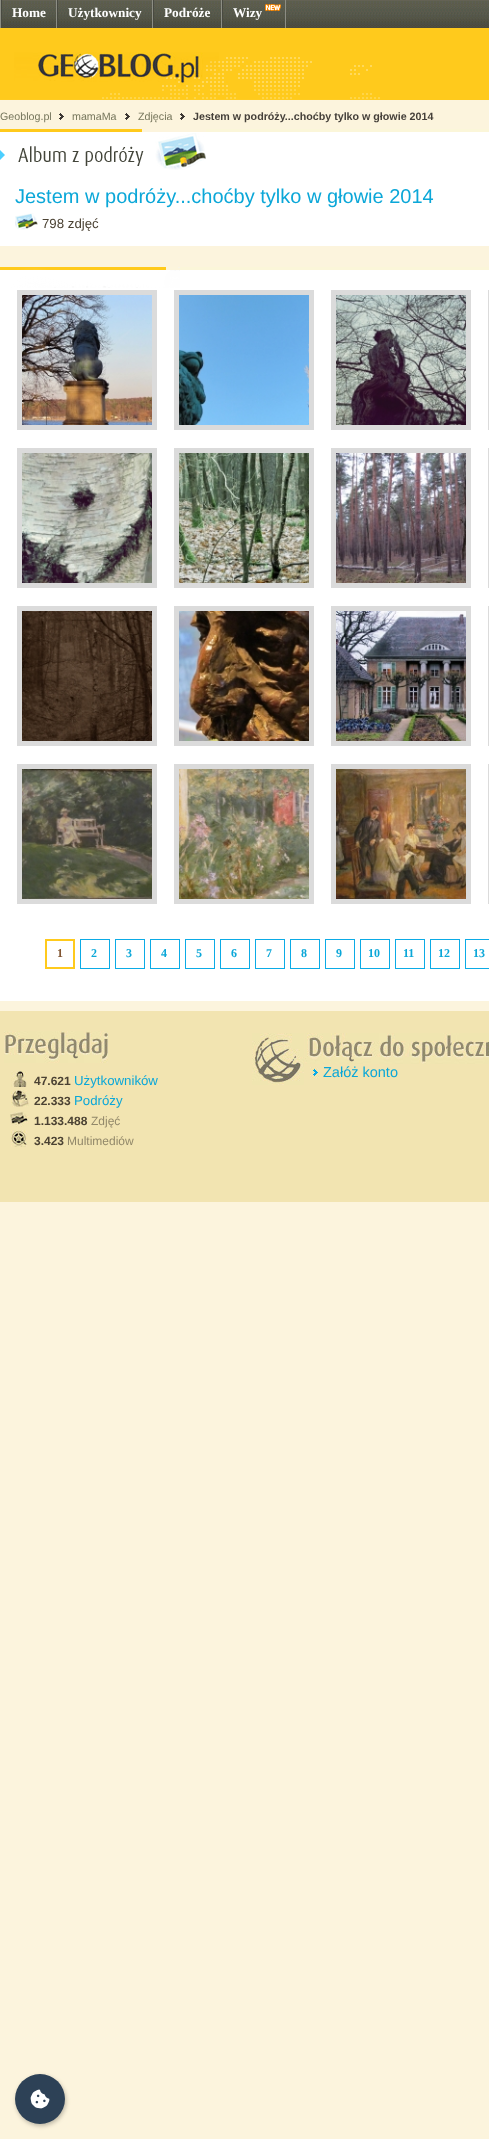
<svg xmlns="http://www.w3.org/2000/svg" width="489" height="2139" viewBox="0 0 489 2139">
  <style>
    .t1 { font: bold 13.25px Liberation Serif; fill: #fff; }
    .t2 { font: 10.7px Liberation Sans; fill: #76765c; }
    .t3 { font: bold 10.7px Liberation Sans; fill: #443f39; }
    .t4 { font: 20px Liberation Sans; fill: #0ba7d8; }
    .t5 { font: 13.25px Liberation Sans; fill: #4b4233; }
    .t6 { font: bold 12px Liberation Serif; fill: #815531; }
    .t7 { font: bold 12px Liberation Serif; fill: #0ba7d8; }
    .t8 { font: 14.5px Liberation Sans; fill: #0ba7d8; }
    .t9 { font: bold 12px Liberation Sans; fill: #4b4233; }
    .t10 { font: 13.25px Liberation Sans; fill: #0ba7d8; }
    .t11 { font: 12px Liberation Sans; fill: #92886a; }
  </style>
  <rect width="100%" height="100%" fill="#fcf4dd"/>
  <image x="2" y="0" width="487" height="28" href="images/1.png"/>
  <rect x="0" y="0" width="1" height="28" fill="#8c8d83"/>
  <rect x="56" y="0" width="1" height="28" fill="#8c8d83"/>
  <rect x="1" y="0" width="1" height="28" fill="#494a41"/>
  <text x="12" y="17" class="t1">Home</text>
  <rect x="152" y="0" width="1" height="28" fill="#8c8d83"/>
  <rect x="57" y="0" width="1" height="28" fill="#494a41"/>
  <text x="68" y="17" class="t1">Użytkownicy</text>
  <rect x="221" y="0" width="1" height="28" fill="#8c8d83"/>
  <rect x="153" y="0" width="1" height="28" fill="#494a41"/>
  <text x="164" y="17" class="t1">Podróże</text>
  <rect x="285" y="0" width="1" height="28" fill="#8c8d83"/>
  <rect x="222" y="0" width="1" height="28" fill="#494a41"/>
  <text x="233" y="17" class="t1">Wizy</text>
  <image x="265" y="4" width="16" height="7" href="images/2.png"/>
  <rect x="0" y="28" width="489" height="72" fill="#ffca1c"/>
  <image x="0" y="52" width="380" height="48" href="images/3.png"/>
  <text x="0" y="120" class="t2">Geoblog.pl</text>
  <image x="59" y="113" width="5" height="7" href="images/4.png"/>
  <text x="72" y="120" class="t2">mamaMa</text>
  <image x="125" y="113" width="5" height="7" href="images/4.png"/>
  <text x="138" y="120" class="t2">Zdjęcia</text>
  <image x="180" y="113" width="5" height="7" href="images/4.png"/>
  <text x="193" y="120" class="t3">Jestem w podróży...choćby tylko w głowie 2014</text>
  <rect x="0" y="132" width="489" height="114" fill="#fff"/>
  <rect x="206" y="129" width="283" height="3" fill="#fbf6d9"/>
  <image x="0" y="129" width="206" height="41" href="images/5.png"/>
  <text x="15" y="203" class="t4">Jestem w podróży...choćby tylko w głowie 2014</text>
  <image x="15" y="213" width="23" height="17" href="images/6.png"/>
  <text x="42" y="228" class="t5">798 zdjęć</text>
  <rect x="0" y="270" width="489" height="731" fill="#fff"/>
  <rect x="180" y="267" width="309" height="3" fill="#fbf6d9"/>
  <image x="0" y="267" width="180" height="21" href="images/7.png"/>
  <rect x="19.5" y="292.5" width="135" height="135" fill="none" stroke="#dbdbdb" stroke-width="5"/>
  <image x="22" y="295" width="130" height="130" href="images/8.png"/>
  <rect x="176.5" y="292.5" width="135" height="135" fill="none" stroke="#dbdbdb" stroke-width="5"/>
  <image x="179" y="295" width="130" height="130" href="images/9.png"/>
  <rect x="333.5" y="292.5" width="135" height="135" fill="none" stroke="#dbdbdb" stroke-width="5"/>
  <image x="336" y="295" width="130" height="130" href="images/10.png"/>
  <rect x="490.5" y="292.5" width="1" height="135" fill="none" stroke="#dbdbdb" stroke-width="5"/>
  <rect x="19.5" y="450.5" width="135" height="135" fill="none" stroke="#dbdbdb" stroke-width="5"/>
  <image x="22" y="453" width="130" height="130" href="images/11.png"/>
  <rect x="176.5" y="450.5" width="135" height="135" fill="none" stroke="#dbdbdb" stroke-width="5"/>
  <image x="179" y="453" width="130" height="130" href="images/12.png"/>
  <rect x="333.5" y="450.5" width="135" height="135" fill="none" stroke="#dbdbdb" stroke-width="5"/>
  <image x="336" y="453" width="130" height="130" href="images/13.png"/>
  <rect x="490.5" y="450.5" width="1" height="135" fill="none" stroke="#dbdbdb" stroke-width="5"/>
  <rect x="19.5" y="608.5" width="135" height="135" fill="none" stroke="#dbdbdb" stroke-width="5"/>
  <image x="22" y="611" width="130" height="130" href="images/14.png"/>
  <rect x="176.5" y="608.5" width="135" height="135" fill="none" stroke="#dbdbdb" stroke-width="5"/>
  <image x="179" y="611" width="130" height="130" href="images/15.png"/>
  <rect x="333.5" y="608.5" width="135" height="135" fill="none" stroke="#dbdbdb" stroke-width="5"/>
  <image x="336" y="611" width="130" height="130" href="images/16.png"/>
  <rect x="490.5" y="608.5" width="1" height="135" fill="none" stroke="#dbdbdb" stroke-width="5"/>
  <rect x="19.5" y="766.5" width="135" height="135" fill="none" stroke="#dbdbdb" stroke-width="5"/>
  <image x="22" y="769" width="130" height="130" href="images/17.png"/>
  <rect x="176.5" y="766.5" width="135" height="135" fill="none" stroke="#dbdbdb" stroke-width="5"/>
  <image x="179" y="769" width="130" height="130" href="images/18.png"/>
  <rect x="333.5" y="766.5" width="135" height="135" fill="none" stroke="#dbdbdb" stroke-width="5"/>
  <image x="336" y="769" width="130" height="130" href="images/19.png"/>
  <rect x="490.5" y="766.5" width="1" height="135" fill="none" stroke="#dbdbdb" stroke-width="5"/>
  <rect x="46" y="940" width="28" height="28" fill="none" stroke="#ffca1c" stroke-width="2"/>
  <text x="57" y="957" class="t6">1</text>
  <rect x="80.5" y="939.5" width="29" height="29" fill="none" stroke="#0babe6"/>
  <text x="91" y="957" class="t7">2</text>
  <rect x="115.5" y="939.5" width="29" height="29" fill="none" stroke="#0babe6"/>
  <text x="126" y="957" class="t7">3</text>
  <rect x="150.5" y="939.5" width="29" height="29" fill="none" stroke="#0babe6"/>
  <text x="161" y="957" class="t7">4</text>
  <rect x="185.5" y="939.5" width="29" height="29" fill="none" stroke="#0babe6"/>
  <text x="196" y="957" class="t7">5</text>
  <rect x="220.5" y="939.5" width="29" height="29" fill="none" stroke="#0babe6"/>
  <text x="231" y="957" class="t7">6</text>
  <rect x="255.5" y="939.5" width="29" height="29" fill="none" stroke="#0babe6"/>
  <text x="266" y="957" class="t7">7</text>
  <rect x="290.5" y="939.5" width="29" height="29" fill="none" stroke="#0babe6"/>
  <text x="301" y="957" class="t7">8</text>
  <rect x="325.5" y="939.5" width="29" height="29" fill="none" stroke="#0babe6"/>
  <text x="336" y="957" class="t7">9</text>
  <rect x="360.5" y="939.5" width="29" height="29" fill="none" stroke="#0babe6"/>
  <text x="368" y="957" class="t7">10</text>
  <rect x="395.5" y="939.5" width="29" height="29" fill="none" stroke="#0babe6"/>
  <text x="403" y="957" class="t7">11</text>
  <rect x="430.5" y="939.5" width="29" height="29" fill="none" stroke="#0babe6"/>
  <text x="438" y="957" class="t7">12</text>
  <rect x="465.5" y="939.5" width="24" height="29" fill="none" stroke="#0babe6"/>
  <text x="473" y="957" class="t7">13</text>
  <rect x="0" y="1011" width="489" height="191" fill="#f2e4b1"/>
  <image x="252" y="1033" width="52" height="52" href="images/20.png"/>
  <image x="305" y="1033" width="184" height="31" href="images/21.png"/>
  <image x="310" y="1067" width="9" height="12" href="images/22.png"/>
  <text x="323" y="1077" class="t8">Załóż konto</text>
  <image x="4" y="1031" width="104" height="32" href="images/23.png"/>
  <image x="11" y="1071" width="16" height="16" href="images/24.png"/>
  <text x="34" y="1085" class="t9">47.621</text>
  <text x="74" y="1085" class="t10">Użytkowników</text>
  <image x="11" y="1090" width="18" height="17" href="images/25.png"/>
  <text x="34" y="1105" class="t9">22.333</text>
  <text x="74" y="1105" class="t10">Podróży</text>
  <image x="10" y="1111" width="19" height="16" href="images/26.png"/>
  <text x="34" y="1125" class="t9">1.133.488</text>
  <text x="91" y="1125" class="t11">Zdjęć</text>
  <image x="11" y="1130" width="16" height="17" href="images/27.png"/>
  <text x="34" y="1145" class="t9">3.423</text>
  <text x="67" y="1145" class="t11">Multimediów</text>
  <rect x="16" y="2076" width="50" height="50" rx="25" fill="#00000040" filter="blur(2px)"/>
  <circle cx="40" cy="2099" r="25" fill="#2d4156"/>
  <image x="30" y="2089" width="20" height="20" href="images/28.png"/>
</svg>
